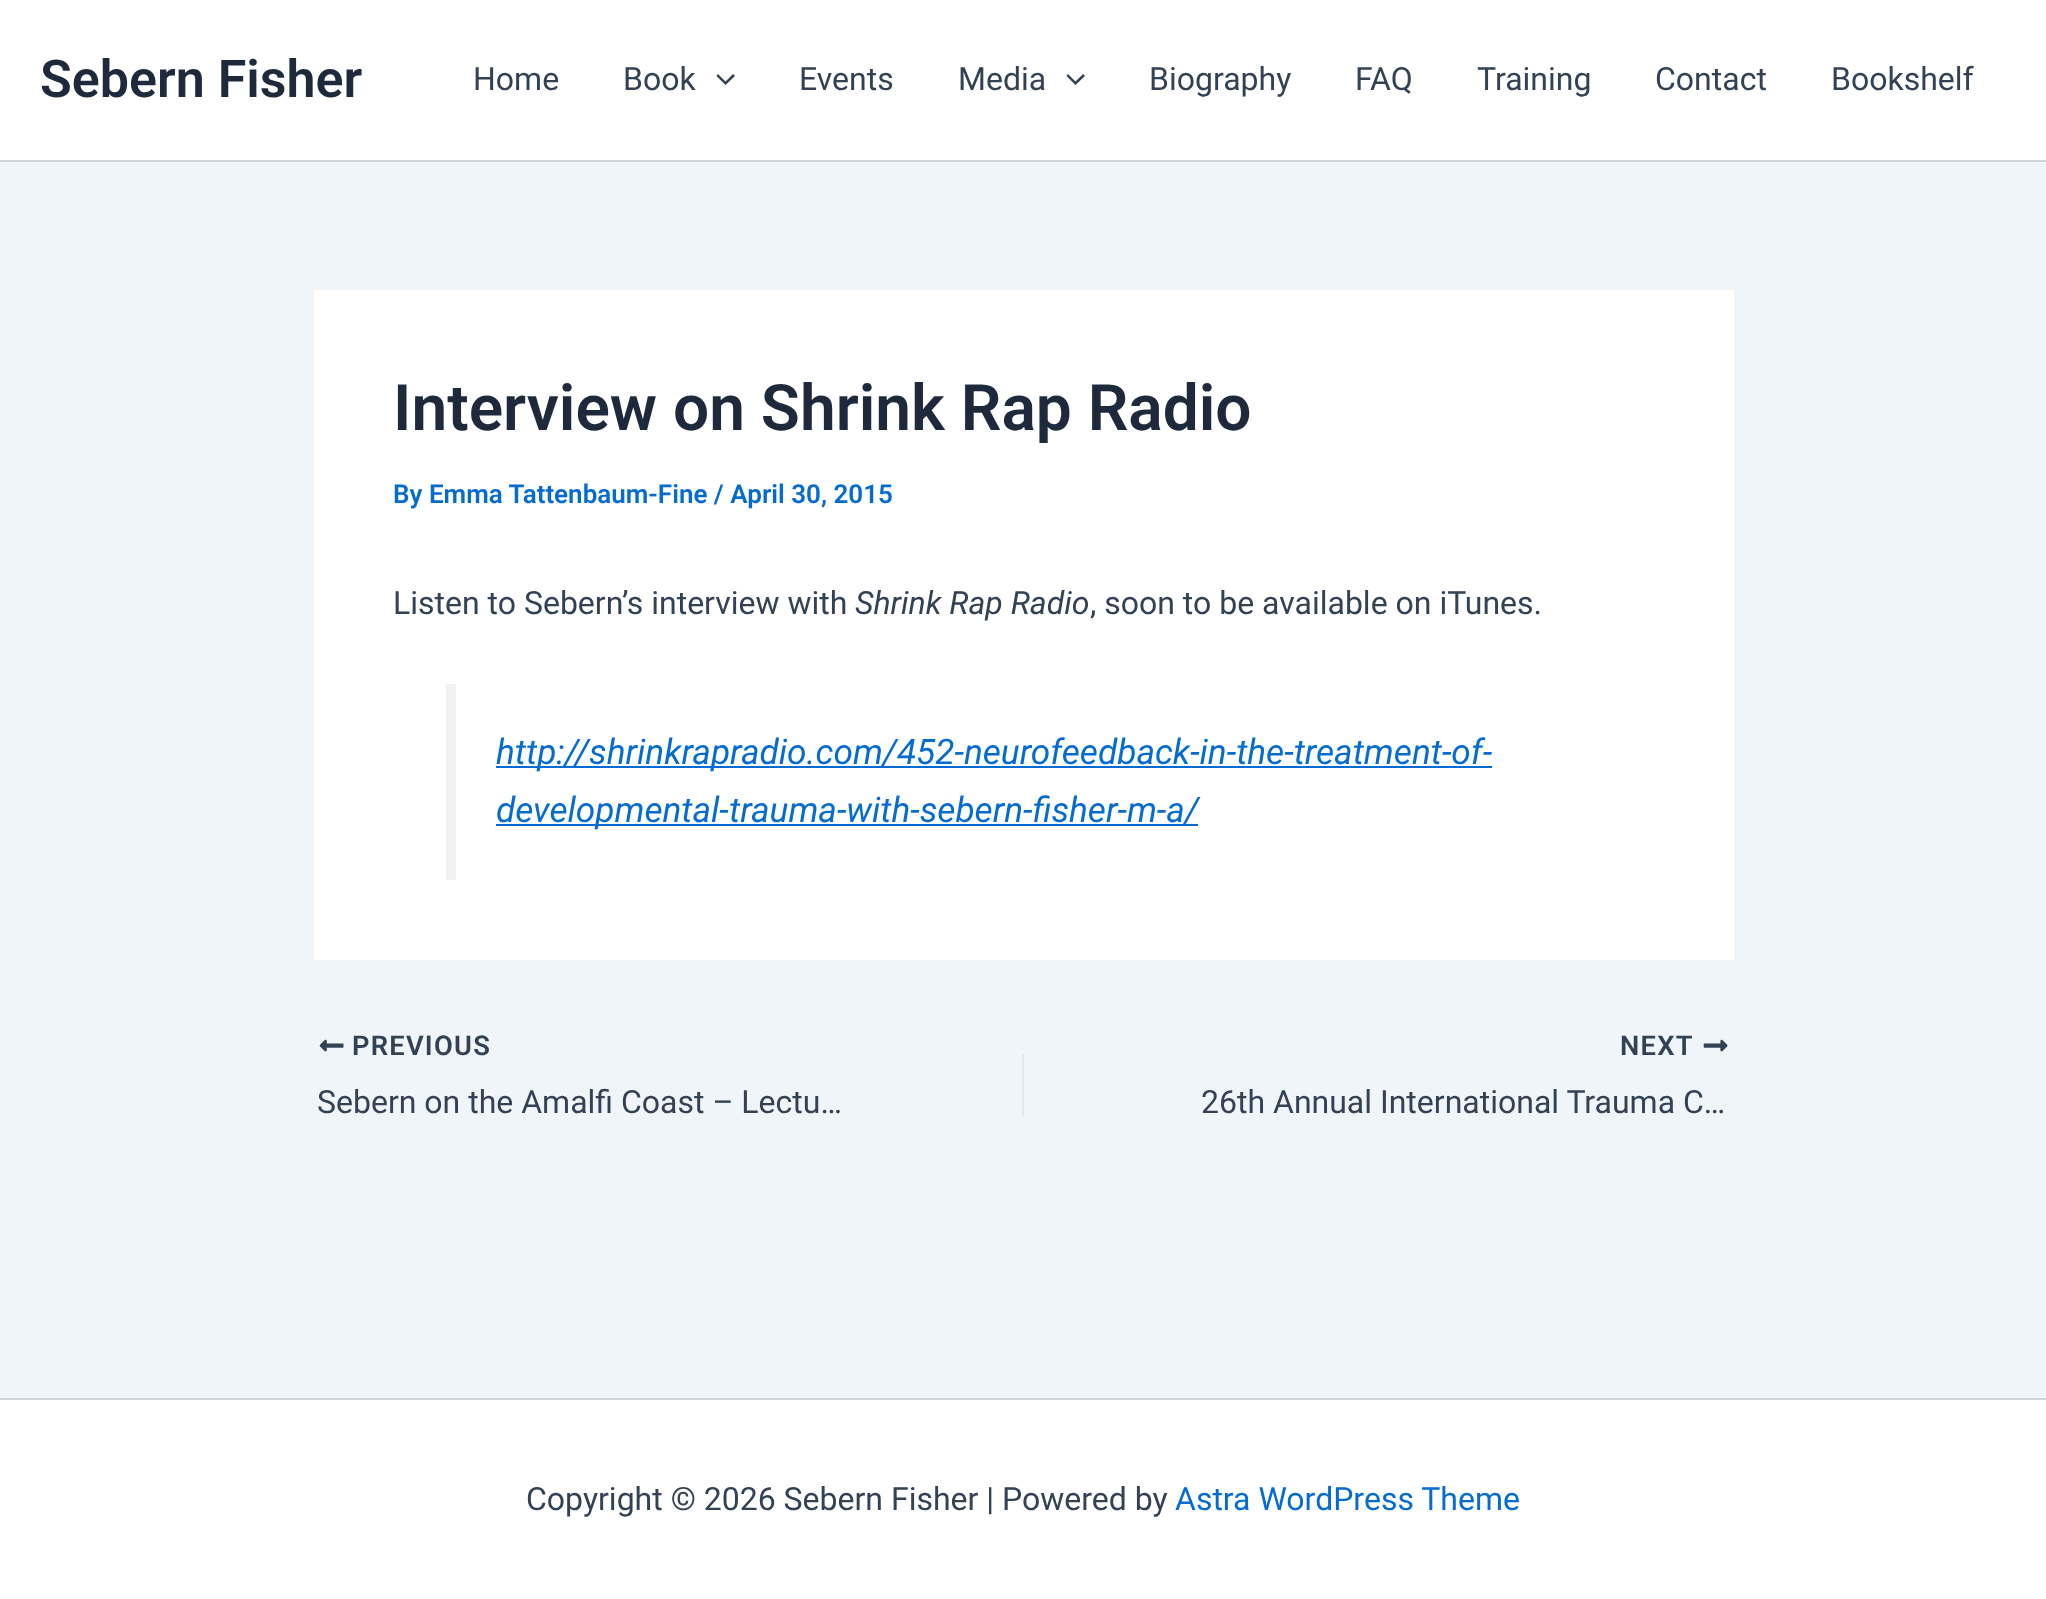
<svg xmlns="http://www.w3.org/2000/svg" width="2046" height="1599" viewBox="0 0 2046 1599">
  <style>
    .t1 { font: 600 52px Roboto; fill: #1e293b; }
    .t2 { font: 32px Roboto; fill: #334155; }
    .t3 { font: 600 64px Roboto; fill: #1e293b; }
    .t4 { font: 600 26px Roboto; fill: #046bd2; }
    .t5 { font: italic 32px Roboto; fill: #334155; }
    .t6 { font: italic 35.2px Roboto; fill: #046bd2; }
    .t7 { font: 600 27.25px Roboto; letter-spacing: 1.25px; fill: #334155; }
    .t8 { font: 32px Roboto; fill: #046bd2; }
  </style>
  <rect width="100%" height="100%" fill="#f0f5fa"/>
  <rect x="0" y="0" width="2046" height="160" fill="#fff"/>
  <rect x="0" y="160" width="2046" height="2" fill="#d1d5db"/>
  <text x="40" y="97" class="t1">Sebern Fisher</text>
  <text x="473" y="90" class="t2">Home</text>
  <text x="623" y="90" class="t2">Book</text>
  <path d="M716.5 76L725.5 85L735 76L733 74L725.5 81.5L718 74Z" fill="#334155"/>
  <text x="799" y="90" class="t2">Events</text>
  <text x="958" y="90" class="t2">Media</text>
  <path d="M1066.5 76L1075.5 85L1085 76L1083 74L1075.5 81.5L1068 74Z" fill="#334155"/>
  <text x="1149" y="90" class="t2">Biography</text>
  <text x="1355" y="90" class="t2">FAQ</text>
  <text x="1477" y="90" class="t2">Training</text>
  <text x="1655" y="90" class="t2">Contact</text>
  <text x="1831" y="90" class="t2">Bookshelf</text>
  <rect x="314" y="290" width="1420" height="670" fill="#fff"/>
  <text x="393" y="430" class="t3">Interview on Shrink Rap Radio</text>
  <text x="393" y="503" class="t4">By Emma Tattenbaum-Fine / April 30, 2015</text>
  <text x="393" y="614" class="t2">Listen to Sebern’s interview with</text>
  <text x="855" y="614" class="t5">Shrink Rap Radio</text>
  <text x="1090" y="614" class="t2">, soon to be available on iTunes.</text>
  <rect x="446" y="684" width="10" height="196" fill="#f2f2f2"/>
  <rect x="496" y="766" width="996" height="2" fill="#046bd2"/>
  <text x="496" y="764" class="t6">http://shrinkrapradio.com/452-neurofeedback-in-the-treatment-of-</text>
  <rect x="496" y="824" width="232" height="2" fill="#046bd2"/>
  <text x="496" y="822" class="t6">developmental-</text>
  <rect x="728" y="824" width="470" height="2" fill="#046bd2"/>
  <text x="729" y="822" class="t6">trauma-with-sebern-fisher-m-a/</text>
  <image x="319" y="1039" width="25" height="13" href="images/1.png"/>
  <text x="352" y="1055" class="t7">PREVIOUS</text>
  <text x="317" y="1113" class="t2">Sebern on the Amalfi Coast – Lectu…</text>
  <rect x="1022" y="1054" width="2" height="62" fill="#e1e8ed"/>
  <text x="1620" y="1055" class="t7">NEXT</text>
  <image x="1703" y="1039" width="25" height="13" href="images/2.png"/>
  <text x="1201" y="1113" class="t2">26th Annual International Trauma C…</text>
  <rect x="0" y="1400" width="2046" height="199" fill="#fff"/>
  <rect x="0" y="1398" width="2046" height="2" fill="#d1d5db"/>
  <text x="526" y="1510" class="t2">Copyright © 2026 Sebern Fisher | Powered by</text>
  <text x="1175" y="1510" class="t8">Astra WordPress Theme</text>
</svg>
